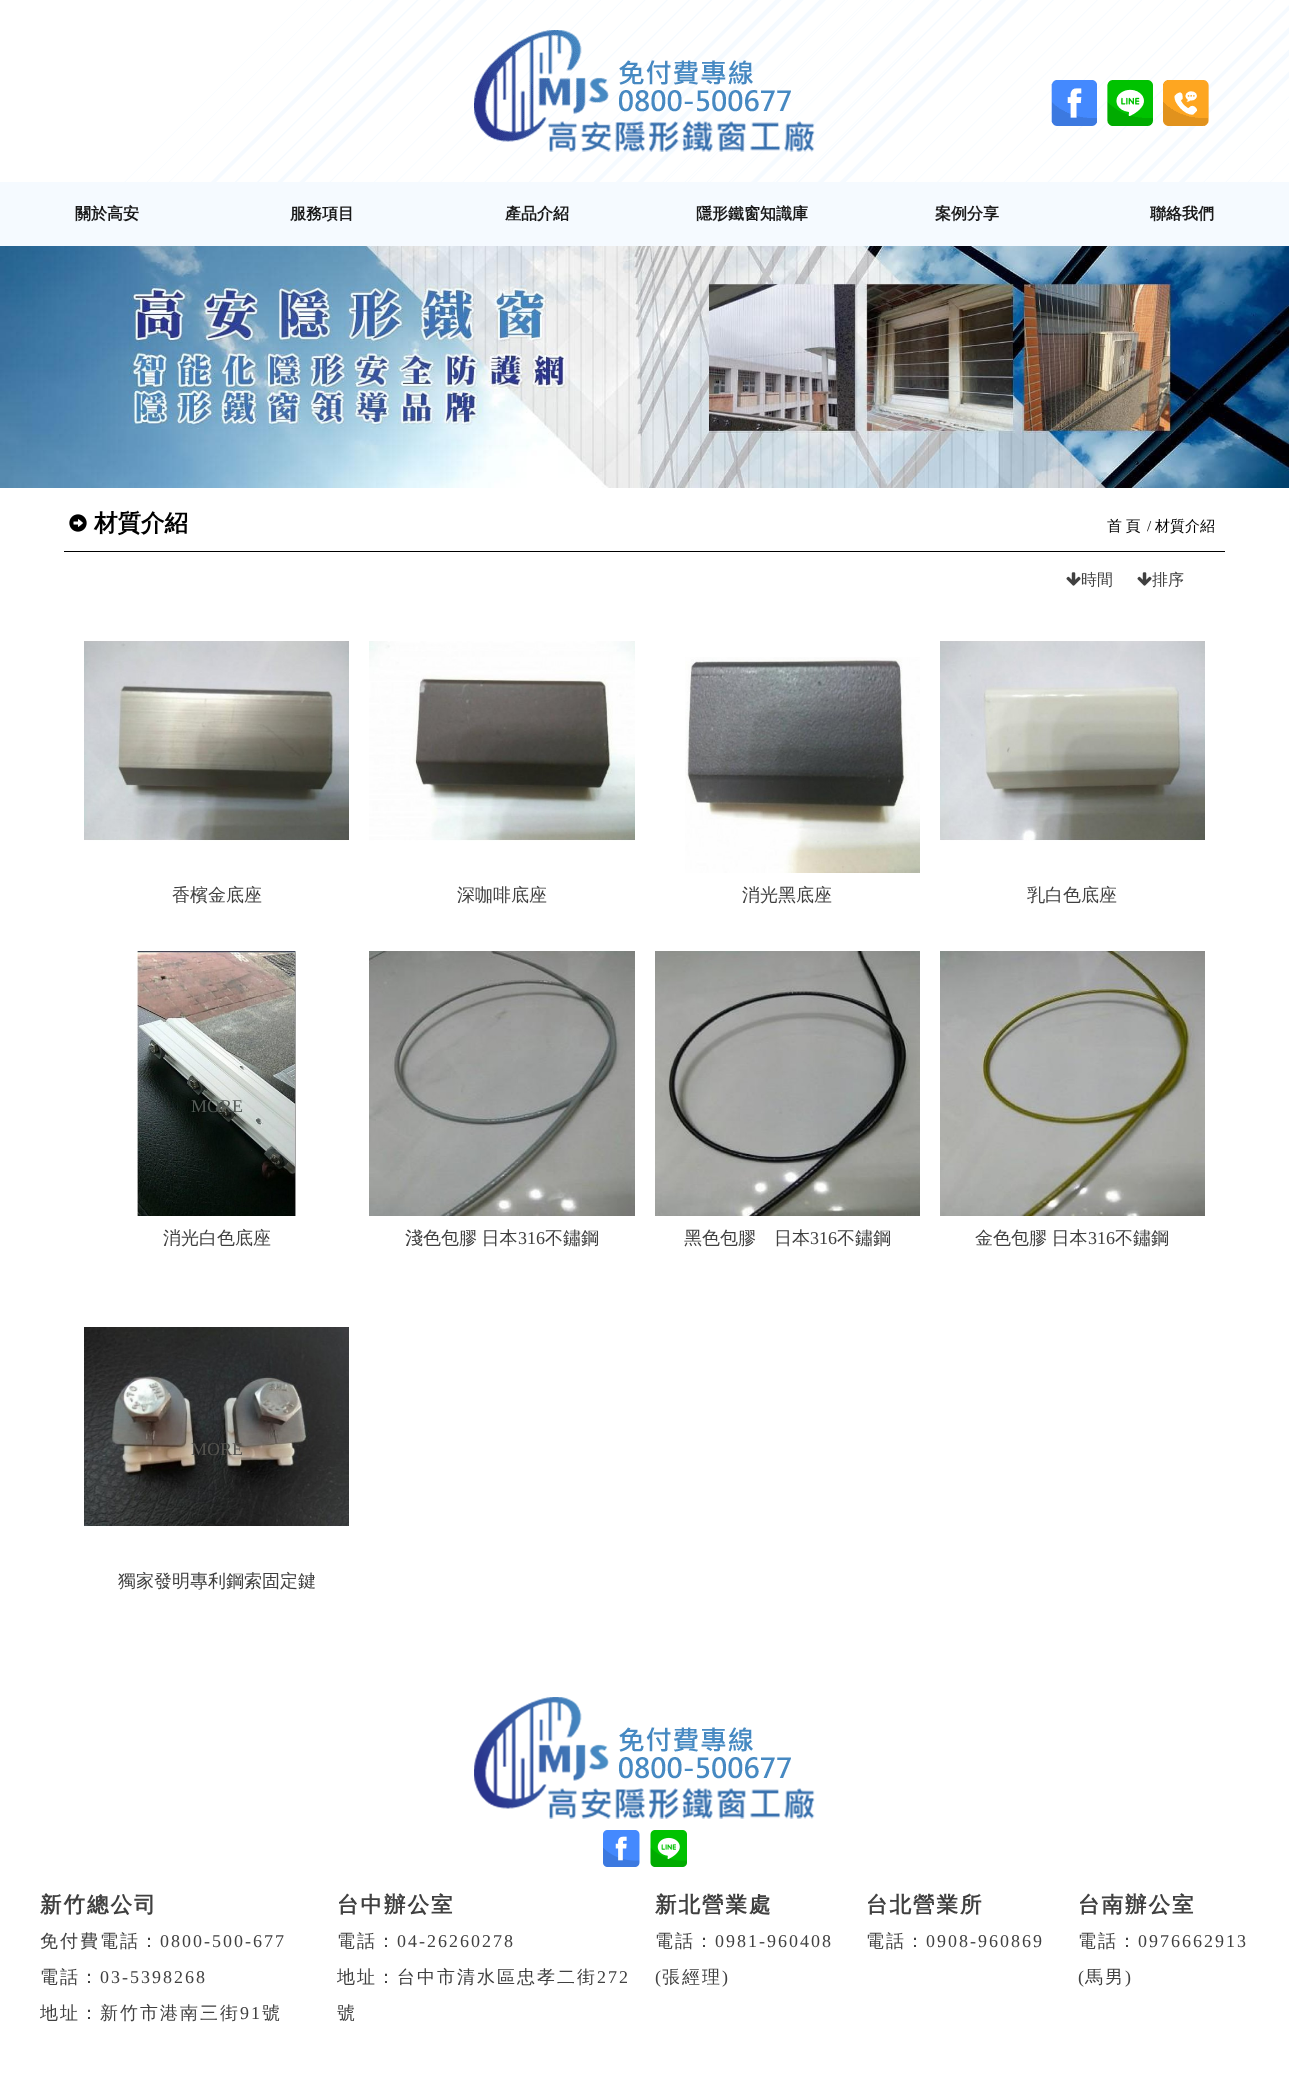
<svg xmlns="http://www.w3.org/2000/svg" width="1289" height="2073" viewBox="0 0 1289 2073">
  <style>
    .t1 { font: bold 16px WenQuanYi Zen Hei; fill: #191919; }
    .t2 { font: bold 23.5px WenQuanYi Zen Hei; fill: #000; }
    .t3 { font: 500 15px WenQuanYi Zen Hei; fill: #000; }
    .t4 { font: 15px Liberation Serif; fill: #000; }
    .t5 { font: 500 16px WenQuanYi Zen Hei; fill: #404040; }
    .t6 { font: 500 18px WenQuanYi Zen Hei; fill: #404040; }
    .t7 { font: 18px Liberation Serif; fill: #565c58; }
    .t8 { font: 18px Liberation Serif; fill: #404040; }
    .t9 { font: 18px Liberation Serif; fill: #555450; }
    .t10 { font: bold 21.5px WenQuanYi Zen Hei; letter-spacing: 2px; fill: #404040; }
    .t11 { font: 500 18px WenQuanYi Zen Hei; letter-spacing: 2px; fill: #404040; }
    .t12 { font: 18px Liberation Serif; letter-spacing: 2px; fill: #404040; }
  </style>
  <rect width="100%" height="100%" fill="#fff"/>
  <image x="124" y="0" width="795" height="182" href="images/1.png"/>
  <image x="665" y="0" width="624" height="182" href="images/2.png"/>
  <image x="474" y="30" width="341" height="122" href="images/3.png"/>
  <image x="1051" y="80" width="46" height="46" href="images/4.png"/>
  <image x="1107" y="80" width="46" height="46" href="images/5.png"/>
  <image x="1163" y="80" width="46" height="46" href="images/6.png"/>
  <rect x="0" y="182" width="1289" height="64" fill="#f5faff"/>
  <text x="75" y="219" class="t1">關於高安</text>
  <text x="290" y="219" class="t1">服務項目</text>
  <text x="505" y="219" class="t1">產品介紹</text>
  <text x="696" y="219" class="t1">隱形鐵窗知識庫</text>
  <text x="935" y="219" class="t1">案例分享</text>
  <text x="1150" y="219" class="t1">聯絡我們</text>
  <image x="0" y="246" width="1289" height="242" href="images/7.png"/>
  <rect x="64" y="551" width="1161" height="1" fill="#000"/>
  <image x="69" y="514" width="18" height="18" href="images/8.png"/>
  <text x="94" y="531" class="t2">材質介紹</text>
  <text x="1107" y="531" word-spacing="-1" class="t3">首 頁</text>
  <text x="1147" y="531" class="t4">/</text>
  <text x="1155" y="531" class="t3">材質介紹</text>
  <image x="1066" y="572" width="15" height="14" href="images/9.png"/>
  <text x="1081" y="585" class="t5">時間</text>
  <image x="1137" y="572" width="15" height="14" href="images/9.png"/>
  <text x="1152" y="585" class="t5">排序</text>
  <image x="84" y="641" width="265" height="200" href="images/10.png"/>
  <text x="172" y="901" class="t6">香檳金底座</text>
  <image x="369" y="641" width="266" height="200" href="images/11.png"/>
  <text x="457" y="901" class="t6">深咖啡底座</text>
  <image x="685" y="657" width="235" height="216" href="images/12.png"/>
  <text x="742" y="901" class="t6">消光黑底座</text>
  <image x="940" y="641" width="265" height="200" href="images/13.png"/>
  <text x="1027" y="901" class="t6">乳白色底座</text>
  <image x="137" y="951" width="159" height="265" href="images/14.png"/>
  <text x="191" y="1112" class="t7">MORE</text>
  <text x="163" y="1244" class="t6">消光白色底座</text>
  <image x="369" y="951" width="266" height="265" href="images/15.png"/>
  <text x="405" y="1244" word-spacing="-1" class="t6">淺色包膠 日本</text>
  <text x="518" y="1244" class="t8">316</text>
  <text x="545" y="1244" class="t6">不鏽鋼</text>
  <image x="655" y="951" width="265" height="265" href="images/16.png"/>
  <text x="684" y="1244" class="t6">黑色包膠　日本</text>
  <text x="810" y="1244" class="t8">316</text>
  <text x="837" y="1244" class="t6">不鏽鋼</text>
  <image x="940" y="951" width="265" height="265" href="images/17.png"/>
  <text x="975" y="1244" word-spacing="-1" class="t6">金色包膠 日本</text>
  <text x="1088" y="1244" class="t8">316</text>
  <text x="1115" y="1244" class="t6">不鏽鋼</text>
  <image x="84" y="1327" width="265" height="200" href="images/18.png"/>
  <text x="191" y="1455" class="t9">MORE</text>
  <text x="118" y="1587" class="t6">獨家發明專利鋼索固定鍵</text>
  <image x="474" y="1697" width="341" height="122" href="images/19.png"/>
  <image x="603" y="1830" width="37" height="37" href="images/20.png"/>
  <image x="650" y="1830" width="37" height="37" href="images/21.png"/>
  <text x="40" y="1912" class="t10">新竹總公司</text>
  <text x="40" y="1947" class="t11">免付費電話：</text>
  <text x="160" y="1947" class="t12">0800-500-677</text>
  <text x="40" y="1983" class="t11">電話：</text>
  <text x="100" y="1983" class="t12">03-5398268</text>
  <text x="40" y="2019" class="t11">地址：新竹市港南三街</text>
  <text x="240" y="2019" class="t12">91</text>
  <text x="262" y="2019" class="t11">號</text>
  <text x="337" y="1912" class="t10">台中辦公室</text>
  <text x="337" y="1947" class="t11">電話：</text>
  <text x="397" y="1947" class="t12">04-26260278</text>
  <text x="337" y="1983" class="t11">地址：台中市清水區忠孝二街</text>
  <text x="597" y="1983" class="t12">272</text>
  <text x="337" y="2019" class="t11">號</text>
  <text x="655" y="1912" class="t10">新北營業處</text>
  <text x="655" y="1947" class="t11">電話：</text>
  <text x="715" y="1947" class="t12">0981-960408</text>
  <text x="655" y="1983" class="t12">(</text>
  <text x="662" y="1983" class="t11">張經理</text>
  <text x="722" y="1983" class="t12">)</text>
  <text x="866" y="1912" class="t10">台北營業所</text>
  <text x="866" y="1947" class="t11">電話：</text>
  <text x="926" y="1947" class="t12">0908-960869</text>
  <text x="1078" y="1912" class="t10">台南辦公室</text>
  <text x="1078" y="1947" class="t11">電話：</text>
  <text x="1138" y="1947" class="t12">0976662913</text>
  <text x="1078" y="1983" class="t12">(</text>
  <text x="1085" y="1983" class="t11">馬男</text>
  <text x="1125" y="1983" class="t12">)</text>
</svg>
